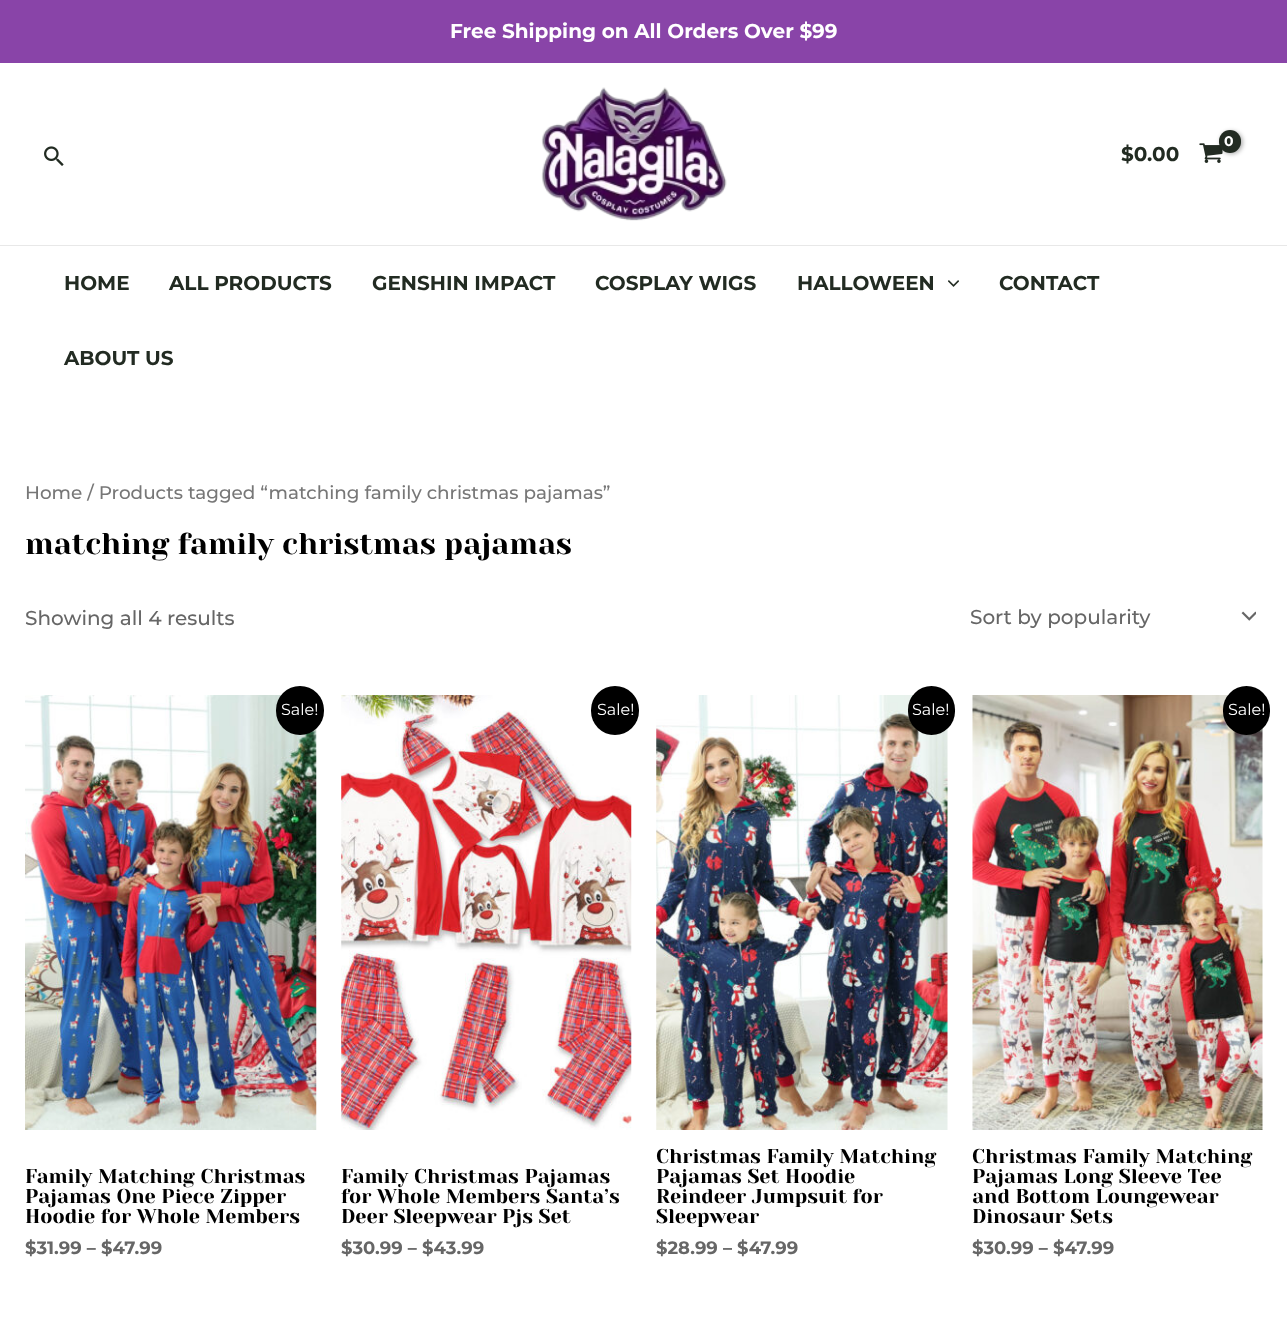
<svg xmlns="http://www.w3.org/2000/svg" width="1287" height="1329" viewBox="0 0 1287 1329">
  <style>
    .t1 { font: bold 20px Montserrat; fill: #fff; }
    .t2 { font: bold 14px Montserrat; letter-spacing: -1px; fill: #fff; }
    .t3 { font: bold 20px Montserrat; fill: #222b22; }
    .t4 { font: 500 18.4px Montserrat; fill: #777; }
    .t5 { font: 30px Yeseva One; fill: #000; }
    .t6 { font: 500 20px Montserrat; fill: #666; }
    .t7 { font: 16px Montserrat; fill: #fff; }
    .t8 { font: 20px Yeseva One; fill: #000; }
    .t9 { font: bold 18px Montserrat; fill: #666; }
  </style>
  <rect width="100%" height="100%" fill="#fff"/>
  <rect x="0" y="0" width="1287" height="63" fill="#8944a8"/>
  <text x="450" y="38" class="t1">Free Shipping on All Orders Over $99</text>
  <rect x="0" y="245" width="1287" height="1" fill="#e8e8e8"/>
  <image x="44" y="146" width="20" height="20" href="images/1.png"/>
  <image x="541" y="87" width="186" height="134" href="images/2.png"/>
  <image x="1199" y="143" width="24" height="20" href="images/3.png"/>
  <rect x="1220" y="131" width="23" height="23" rx="11.5" fill="#0000004d" filter="blur(2px)"/>
  <rect x="1219" y="130" width="22" height="23" rx="11" fill="#222b22"/>
  <text x="1224" y="146" class="t2">0</text>
  <text x="1121" y="161" class="t3">$0.00</text>
  <text x="64" y="290" class="t3">HOME</text>
  <text x="169" y="290" class="t3">ALL PRODUCTS</text>
  <text x="372" y="290" class="t3">GENSHIN IMPACT</text>
  <text x="595" y="290" class="t3">COSPLAY WIGS</text>
  <text x="797" y="290" class="t3">HALLOWEEN</text>
  <image x="948" y="280" width="11" height="7" href="images/4.png"/>
  <text x="999" y="290" class="t3">CONTACT</text>
  <text x="64" y="365" class="t3">ABOUT US</text>
  <text x="25" y="499" class="t4">Home / Products tagged “matching family christmas pajamas”</text>
  <text x="25" y="554" class="t5">matching family christmas pajamas</text>
  <text x="25" y="625" class="t6">Showing all 4 results</text>
  <image x="1241" y="611" width="15" height="10" href="images/5.png"/>
  <text x="970" y="624" class="t6">Sort by popularity</text>
  <image x="25" y="695" width="292" height="435" href="images/6.png"/>
  <rect x="276" y="686" width="48" height="49" rx="24" fill="#000"/>
  <text x="281" y="715" class="t7">Sale!</text>
  <text x="25" y="1183" class="t8">Family Matching Christmas</text>
  <text x="25" y="1203" class="t8">Pajamas One Piece Zipper</text>
  <text x="25" y="1223" class="t8">Hoodie for Whole Members</text>
  <text x="25" y="1254" class="t9">$31.99 – $47.99</text>
  <image x="341" y="695" width="291" height="435" href="images/7.png"/>
  <rect x="591" y="686" width="48" height="49" rx="24" fill="#000"/>
  <text x="597" y="715" class="t7">Sale!</text>
  <text x="341" y="1183" class="t8">Family Christmas Pajamas</text>
  <text x="341" y="1203" class="t8">for Whole Members Santa’s</text>
  <text x="341" y="1223" class="t8">Deer Sleepwear Pjs Set</text>
  <text x="341" y="1254" class="t9">$30.99 – $43.99</text>
  <image x="656" y="695" width="292" height="435" href="images/8.png"/>
  <rect x="908" y="686" width="47" height="49" rx="23.5" fill="#000"/>
  <text x="912" y="715" class="t7">Sale!</text>
  <text x="656" y="1163" class="t8">Christmas Family Matching</text>
  <text x="656" y="1183" class="t8">Pajamas Set Hoodie</text>
  <text x="656" y="1203" class="t8">Reindeer Jumpsuit for</text>
  <text x="656" y="1223" class="t8">Sleepwear</text>
  <text x="656" y="1254" class="t9">$28.99 – $47.99</text>
  <image x="972" y="695" width="291" height="435" href="images/9.png"/>
  <rect x="1223" y="686" width="47" height="49" rx="23.5" fill="#000"/>
  <text x="1228" y="715" class="t7">Sale!</text>
  <text x="972" y="1163" class="t8">Christmas Family Matching</text>
  <text x="972" y="1183" class="t8">Pajamas Long Sleeve Tee</text>
  <text x="972" y="1203" class="t8">and Bottom Loungewear</text>
  <text x="972" y="1223" class="t8">Dinosaur Sets</text>
  <text x="972" y="1254" class="t9">$30.99 – $47.99</text>
</svg>
